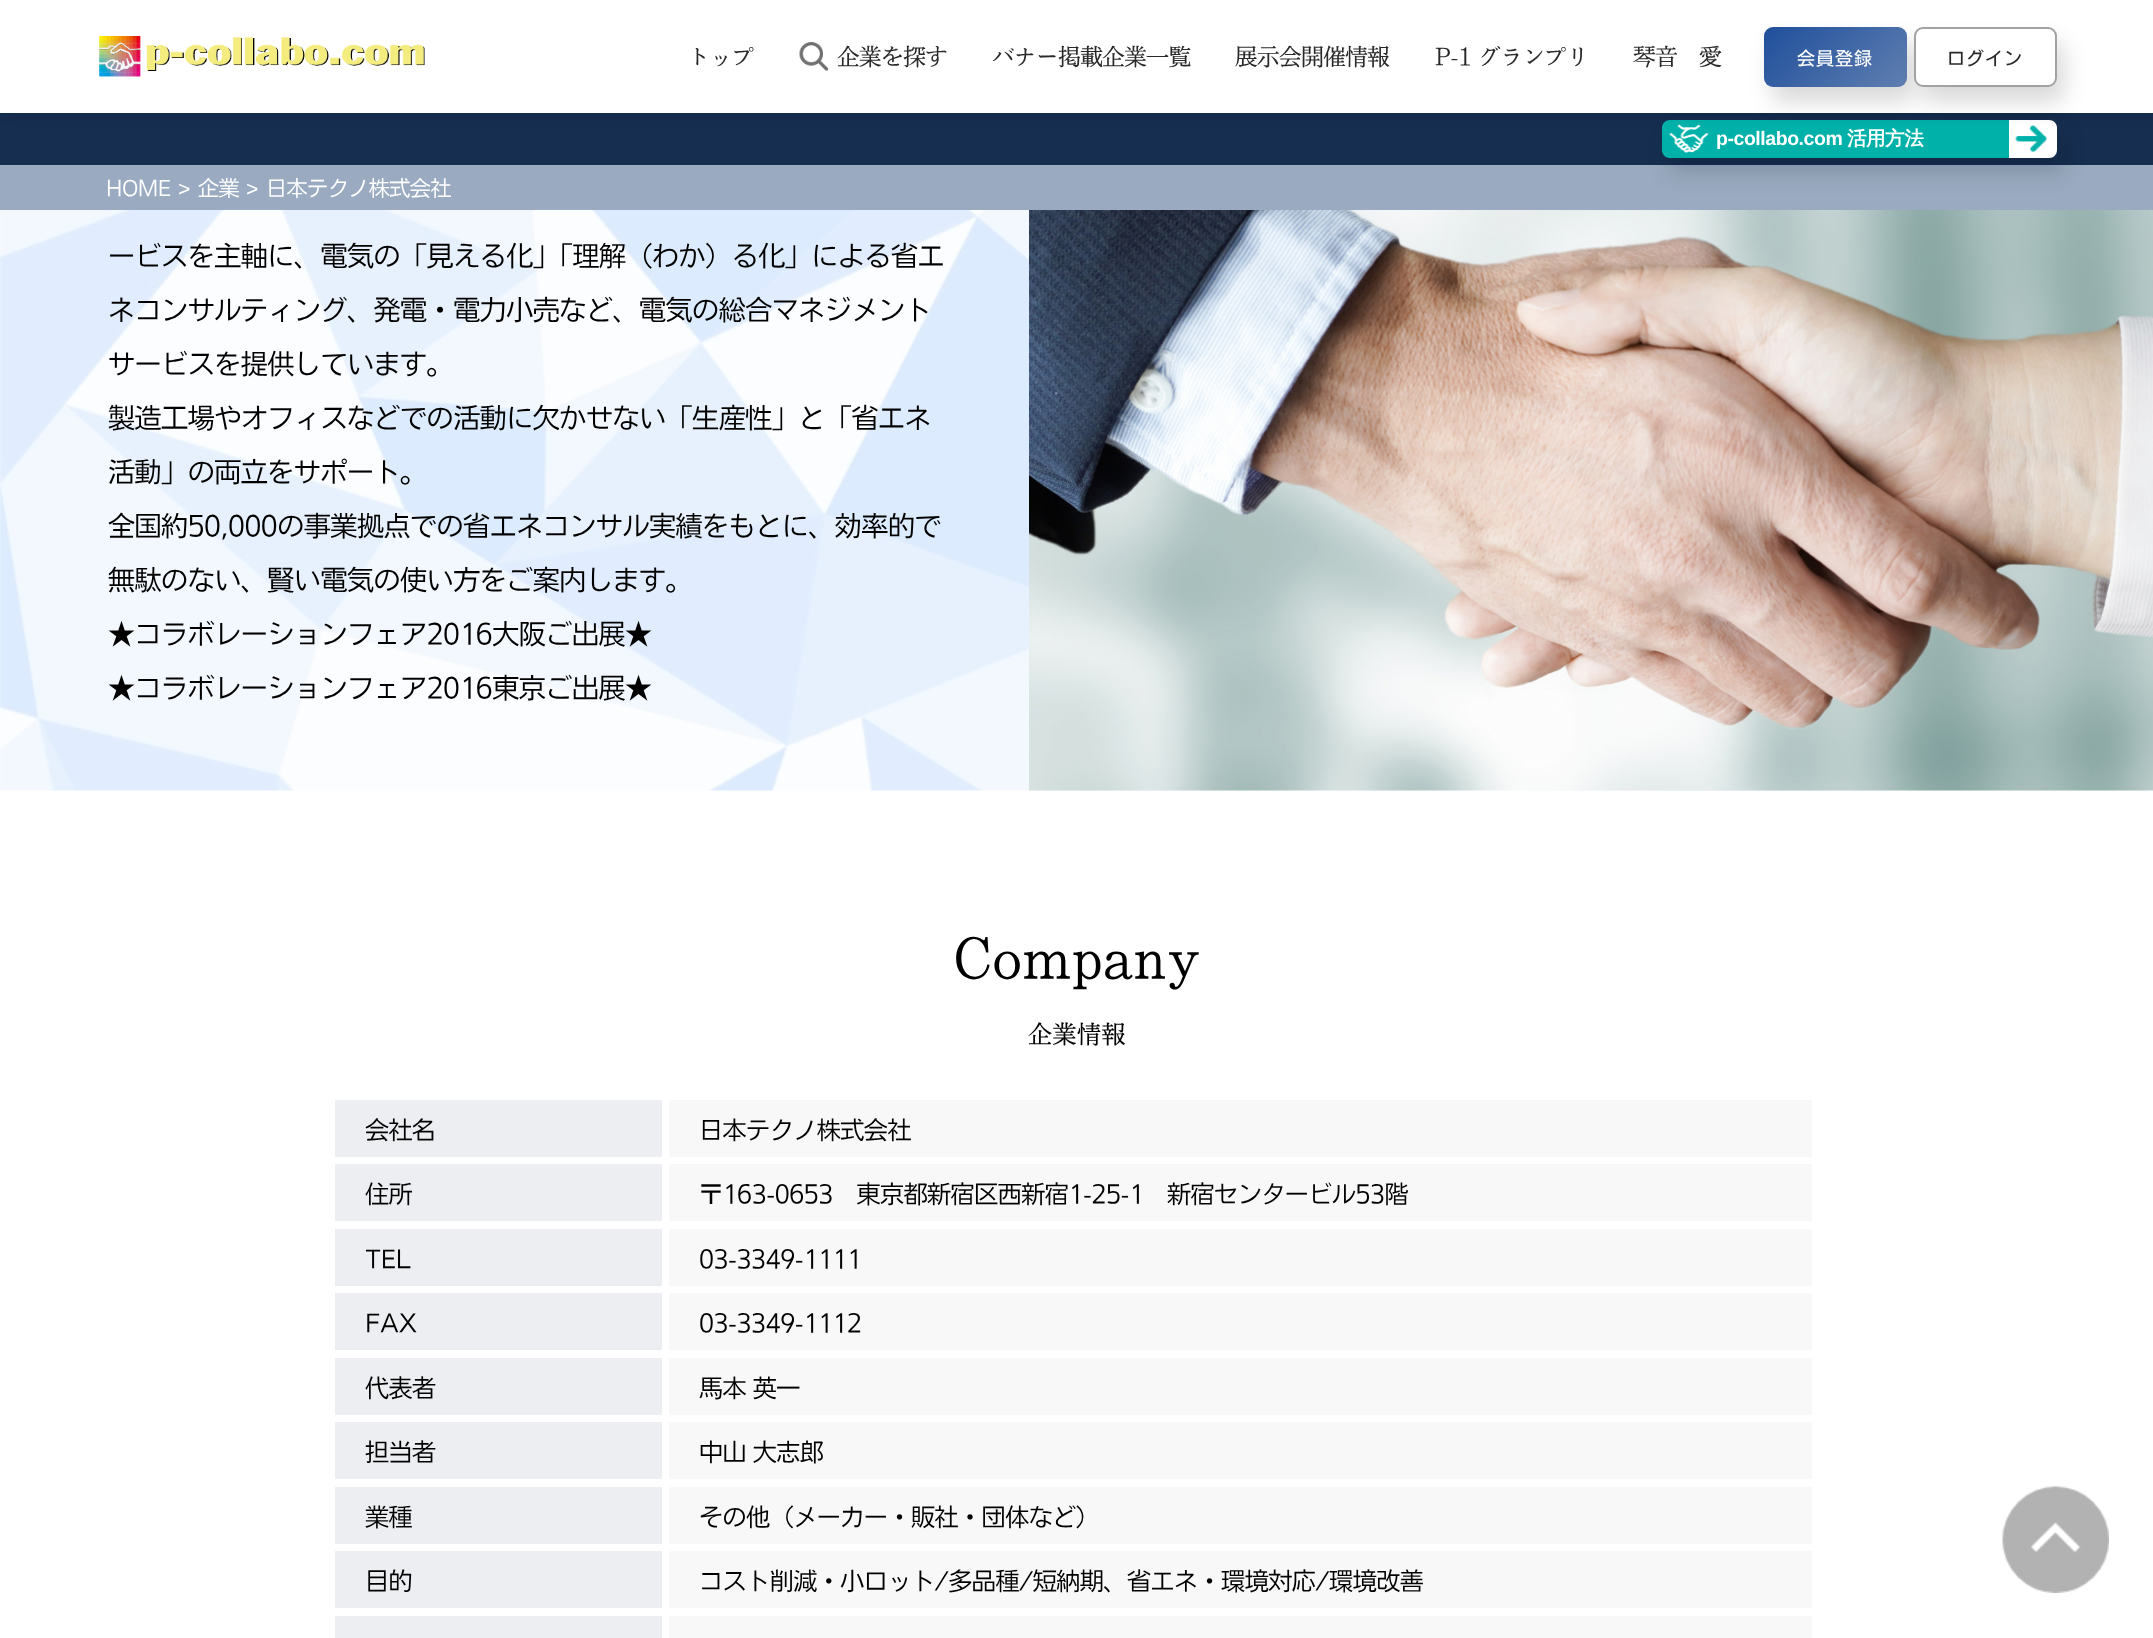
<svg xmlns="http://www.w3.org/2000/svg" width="2153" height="1638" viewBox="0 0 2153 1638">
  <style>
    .t1 { font: 22.5px 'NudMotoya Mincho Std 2'; letter-spacing: -0.45px; fill: #292929; }
    .t2 { font: 18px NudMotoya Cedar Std; letter-spacing: 1px; fill: #fff; }
    .t3 { font: 18px NudMotoya Cedar Std; letter-spacing: 1px; fill: #292929; }
    .t4 { font: bold 19.5px Liberation Sans; letter-spacing: -0.45px; fill: #fff; }
    .t5 { font: bold 19.5px WenQuanYi Zen Hei; letter-spacing: -0.45px; fill: #fff; }
    .t6 { font: 300 21px 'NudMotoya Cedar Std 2'; letter-spacing: -0.45px; fill: #fff; }
    .t7 { font: 21px Liberation Sans; letter-spacing: -0.45px; fill: #fff; }
    .t8 { font: 300 27px NudMotoya Cedar Std; letter-spacing: -0.45px; fill: #000; }
    .t9 { font: 52.5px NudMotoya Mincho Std; letter-spacing: 0.5px; fill: #000; }
    .t10 { font: 24px NudMotoya Mincho Std; letter-spacing: 0.5px; fill: #000; }
    .t11 { font: 300 24px NudMotoya Cedar Std; letter-spacing: -0.45px; fill: #000; }
  </style>
  <defs>
    <clipPath id="clip1"><path d="M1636 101H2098V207H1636ZM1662 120H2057V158H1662Z" clip-rule="evenodd"/></clipPath>
    <linearGradient id="g1" gradientUnits="userSpaceOnUse" x1="1785" y1="6.4" x2="1886" y2="108"><stop offset="0" stop-color="#1f4f9b"/><stop offset="1" stop-color="#607fb1"/></linearGradient>
  </defs>
  <rect width="100%" height="100%" fill="#fff"/>
  <rect x="0" y="113" width="2153" height="52" fill="#162e50"/>
  <rect x="0" y="165" width="2153" height="45" fill="#9aabc1"/>
  <g clip-path="url(#clip1)">
    <rect x="1670" y="135" width="394" height="38" fill="#00000026" filter="blur(11px)"/>
  </g>
  <path d="M1670 120H2009V158H1670C1665.5 158 1662 154.5 1662 150V128C1662 123.5 1665.5 120 1670 120Z" fill="#00b1aa"/>
  <image x="1669" y="124" width="40" height="29" href="images/3.png"/>
  <path d="M2009 120H2049C2053.5 120 2057 123.5 2057 128V150C2057 154.5 2053.5 158 2049 158H2009Z" fill="#fff"/>
  <image x="2015" y="125" width="33" height="28" href="images/4.png"/>
  <rect x="5" y="2" width="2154" height="112" fill="#00000026" filter="blur(6px)"/>
  <rect x="0" y="0" width="2153" height="113" fill="#fff"/>
  <image x="99" y="36" width="326" height="41" href="images/1.png"/>
  <text x="688" y="65" class="t1">トップ</text>
  <image x="799" y="42" width="30" height="30" href="images/2.png"/>
  <text x="837" y="65" class="t1">企業を探す</text>
  <text x="992" y="65" class="t1">バナー掲載企業一覧</text>
  <text x="1235" y="65" class="t1">展示会開催情報</text>
  <text x="1435" y="65" class="t1">P-1 グランプリ</text>
  <text x="1633" y="65" class="t1">琴音　愛</text>
  <rect x="1772" y="42" width="142" height="60" rx="9" fill="#00000026" filter="blur(11px)"/>
  <rect x="1764" y="27" width="143" height="60" rx="9" fill="url(#g1)"/>
  <text x="1797" y="65" class="t2">会員登録</text>
  <rect x="1922" y="42" width="142" height="60" rx="9" fill="#00000026" filter="blur(11px)"/>
  <rect x="1915" y="28" width="141" height="58" rx="8" fill="#fff" stroke="#a2a2a2" stroke-width="2"/>
  <text x="1947" y="65" class="t3">ログイン</text>
  <text x="1716" y="145" class="t4">p-collabo.com</text>
  <text x="1847" y="145" class="t5">活用方法</text>
  <text x="106" y="196" class="t6">HOME</text>
  <text x="178" y="196" class="t7">&gt;</text>
  <text x="198" y="196" class="t6">企業</text>
  <text x="246" y="196" class="t7">&gt;</text>
  <text x="266" y="196" class="t6">日本テクノ株式会社</text>
  <image x="0" y="210" width="2153" height="581" href="images/5.png"/>
  <text x="108" y="266" class="t8">ービスを主軸に、電気の「見える化」「理解（わか）る化」による省エ</text>
  <text x="108" y="320" class="t8">ネコンサルティング、発電・電力小売など、電気の総合マネジメント</text>
  <text x="108" y="374" class="t8">サービスを提供しています。</text>
  <text x="108" y="428" class="t8">製造工場やオフィスなどでの活動に欠かせない「生産性」と「省エネ</text>
  <text x="108" y="482" class="t8">活動」の両立をサポート。</text>
  <text x="108" y="536" class="t8">全国約50,000の事業拠点での省エネコンサル実績をもとに、効率的で</text>
  <text x="108" y="590" class="t8">無駄のない、賢い電気の使い方をご案内します。</text>
  <text x="108" y="644" class="t8">★コラボレーションフェア2016大阪ご出展★</text>
  <text x="108" y="698" class="t8">★コラボレーションフェア2016東京ご出展★</text>
  <image x="1029" y="210" width="1124" height="581" href="images/6.png"/>
  <text x="954" y="978" class="t9">Company</text>
  <text x="1028" y="1043" class="t10">企業情報</text>
  <rect x="335" y="1100" width="327" height="57" fill="#eceef1"/>
  <text x="365" y="1139" class="t11">会社名</text>
  <rect x="669" y="1100" width="1143" height="57" fill="#f8f8f8"/>
  <text x="699" y="1139" class="t11">日本テクノ株式会社</text>
  <rect x="335" y="1164" width="327" height="57" fill="#eceef1"/>
  <text x="365" y="1203" class="t11">住所</text>
  <rect x="669" y="1164" width="1143" height="57" fill="#f8f8f8"/>
  <text x="699" y="1203" class="t11">〒163-0653　東京都新宿区西新宿1-25-1　新宿センタービル53階</text>
  <rect x="335" y="1229" width="327" height="57" fill="#eceef1"/>
  <text x="365" y="1268" class="t11">TEL</text>
  <rect x="669" y="1229" width="1143" height="57" fill="#f8f8f8"/>
  <text x="699" y="1268" class="t11">03-3349-1111</text>
  <rect x="335" y="1293" width="327" height="57" fill="#eceef1"/>
  <text x="365" y="1332" class="t11">FAX</text>
  <rect x="669" y="1293" width="1143" height="57" fill="#f8f8f8"/>
  <text x="699" y="1332" class="t11">03-3349-1112</text>
  <rect x="335" y="1358" width="327" height="57" fill="#eceef1"/>
  <text x="365" y="1397" class="t11">代表者</text>
  <rect x="669" y="1358" width="1143" height="57" fill="#f8f8f8"/>
  <text x="699" y="1397" class="t11">馬本 英一</text>
  <rect x="335" y="1422" width="327" height="57" fill="#eceef1"/>
  <text x="365" y="1461" class="t11">担当者</text>
  <rect x="669" y="1422" width="1143" height="57" fill="#f8f8f8"/>
  <text x="699" y="1461" class="t11">中山 大志郎</text>
  <rect x="335" y="1487" width="327" height="57" fill="#eceef1"/>
  <text x="365" y="1526" class="t11">業種</text>
  <rect x="669" y="1487" width="1143" height="57" fill="#f8f8f8"/>
  <text x="699" y="1526" class="t11">その他（メーカー・販社・団体など）</text>
  <rect x="335" y="1551" width="327" height="57" fill="#eceef1"/>
  <text x="365" y="1590" class="t11">目的</text>
  <rect x="669" y="1551" width="1143" height="57" fill="#f8f8f8"/>
  <text x="699" y="1590" class="t11">コスト削減・小ロット/多品種/短納期、省エネ・環境対応/環境改善</text>
  <rect x="335" y="1616" width="327" height="22" fill="#eceef1"/>
  <rect x="669" y="1616" width="1143" height="22" fill="#f8f8f8"/>
  <image x="2002" y="1486" width="107" height="107" href="images/7.png"/>
</svg>
